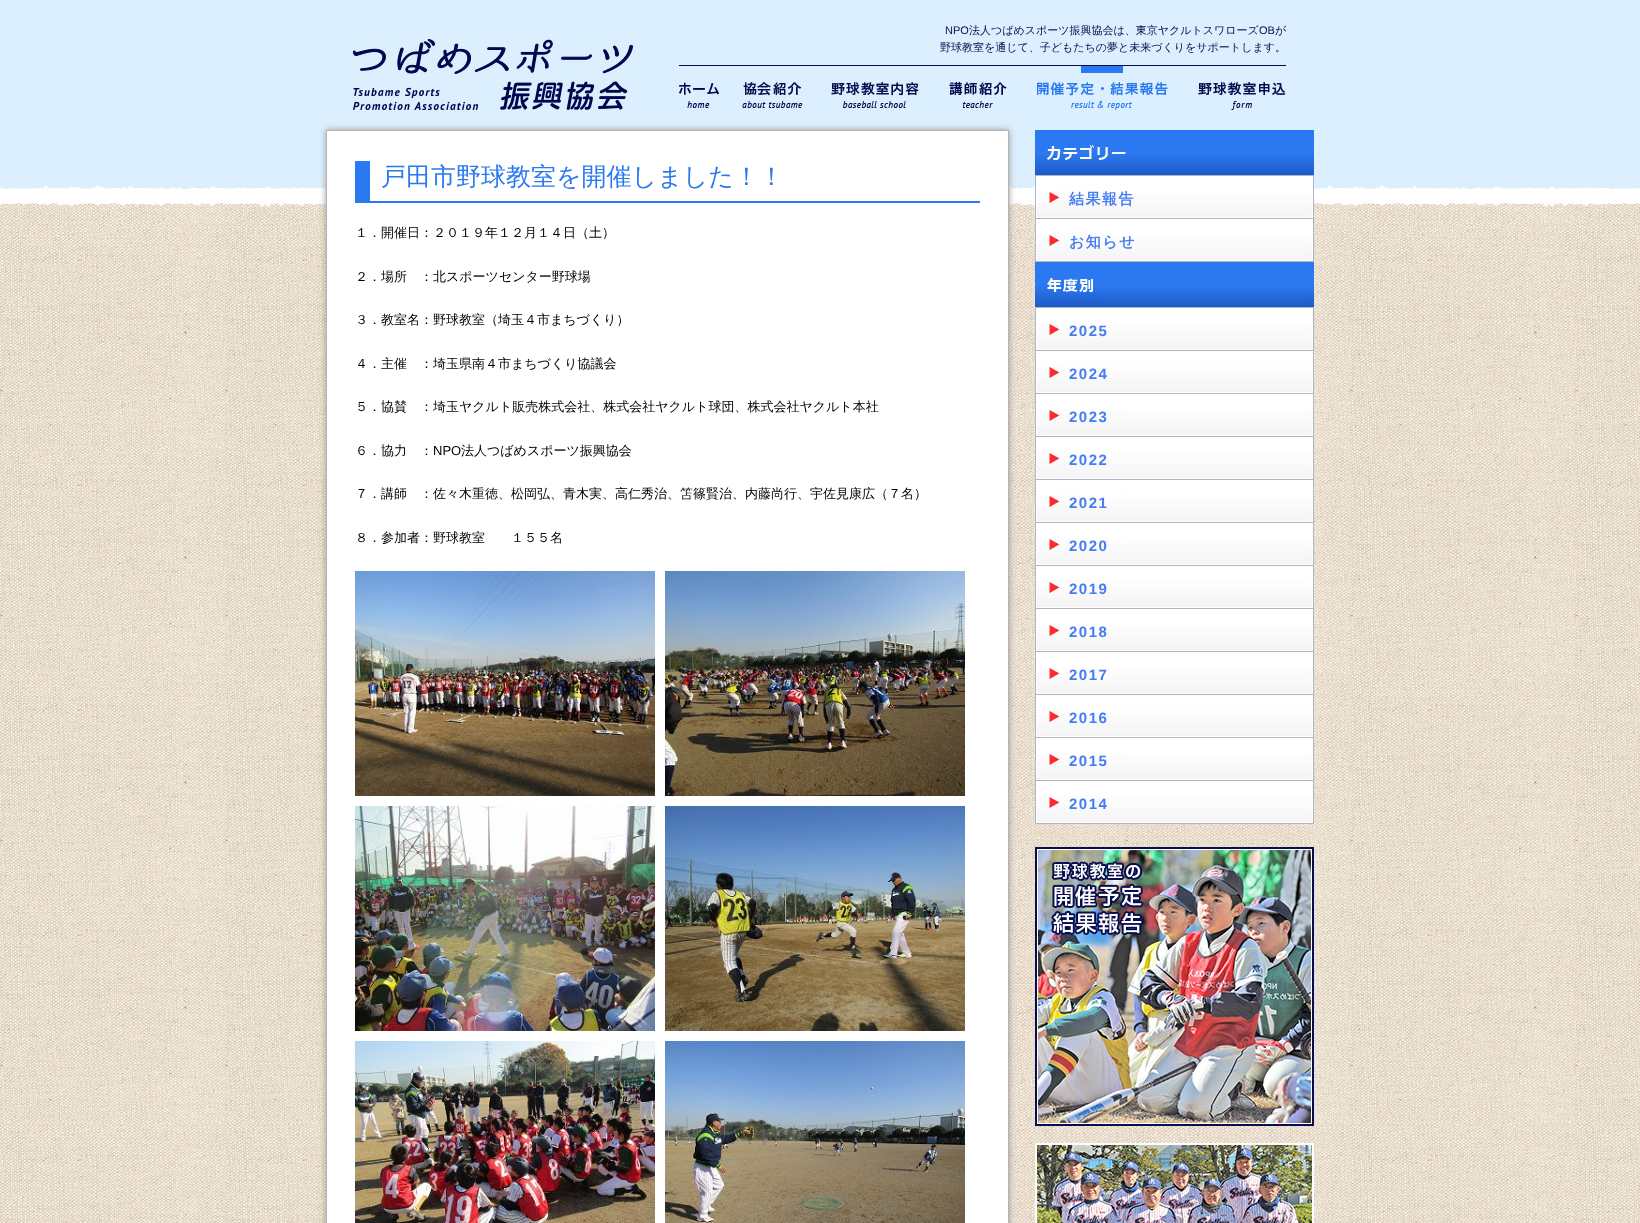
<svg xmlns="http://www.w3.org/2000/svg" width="1640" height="1223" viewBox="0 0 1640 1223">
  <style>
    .t1 { font: 11px Liberation Sans; fill: #080d4f; }
    .t2 { font: 500 11px WenQuanYi Zen Hei; fill: #080d4f; }
    .t3 { font: 500 25px WenQuanYi Zen Hei; fill: #2a79f0; }
    .t4 { font: 500 13px WenQuanYi Zen Hei; fill: #000; }
    .t5 { font: 13px Liberation Sans; fill: #000; }
    .t6 { font: bold 15px WenQuanYi Zen Hei; letter-spacing: 1.5px; fill: #447cf3; }
    .t7 { font: bold 15px Liberation Sans; letter-spacing: 1.5px; fill: #447cf3; }
  </style>
  <rect width="100%" height="100%" fill="#fff"/>
  <image x="0" y="208" width="1640" height="1015" href="images/1.png"/>
  <image x="0" y="0" width="1640" height="208" href="images/2.png"/>
  <image x="353" y="39" width="280" height="71" href="images/3.png"/>
  <text x="945" y="34" class="t1">NPO</text>
  <text x="969" y="34" class="t2">法人つばめスポーツ振興協会は、東京ヤクルトスワローズ</text>
  <text x="1259" y="34" class="t1">OB</text>
  <text x="1275" y="34" class="t2">が</text>
  <text x="940" y="51" class="t2">野球教室を通じて、子どもたちの夢と未来づくりをサポートします。</text>
  <rect x="679" y="65" width="607" height="1" fill="#080d4f"/>
  <image x="679" y="82" width="40" height="26" href="images/4.png"/>
  <image x="742" y="82" width="61" height="26" href="images/5.png"/>
  <image x="831" y="82" width="88" height="26" href="images/6.png"/>
  <image x="949" y="81" width="58" height="27" href="images/7.png"/>
  <image x="1037" y="66" width="131" height="44" href="images/8.png"/>
  <image x="1198" y="82" width="88" height="28" href="images/9.png"/>
  <rect x="326" y="130" width="683" height="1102" fill="#999" filter="blur(3px)"/>
  <rect x="326.5" y="130.5" width="682" height="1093" fill="#fff" stroke="#b5b4b2"/>
  <rect x="370" y="201" width="610" height="2" fill="#2a79f0"/>
  <rect x="355" y="161" width="15" height="42" fill="#2a79f0"/>
  <text x="381" y="185" class="t3">戸田市野球教室を開催しました！！</text>
  <text x="355" y="237" class="t4">１．開催日：２０１９年１２月１４日（土）</text>
  <text x="355" y="281" class="t4">２．場所　：北スポーツセンター野球場</text>
  <text x="355" y="324" class="t4">３．教室名：野球教室（埼玉４市まちづくり）</text>
  <text x="355" y="368" class="t4">４．主催　：埼玉県南４市まちづくり協議会</text>
  <text x="355" y="411" class="t4">５．協賛　：埼玉ヤクルト販売株式会社、株式会社ヤクルト球団、株式会社ヤクルト本社</text>
  <text x="355" y="455" class="t4">６．協力　：</text>
  <text x="433" y="455" class="t5">NPO</text>
  <text x="461" y="455" class="t4">法人つばめスポーツ振興協会</text>
  <text x="355" y="498" class="t4">７．講師　：佐々木重徳、松岡弘、青木実、高仁秀治、笘篠賢治、内藤尚行、宇佐見康広（７名）</text>
  <text x="355" y="542" class="t4">８．参加者：野球教室　　１５５名</text>
  <image x="355" y="571" width="300" height="225" href="images/10.png"/>
  <image x="665" y="571" width="300" height="225" href="images/11.png"/>
  <image x="355" y="806" width="300" height="225" href="images/12.png"/>
  <image x="665" y="806" width="300" height="225" href="images/13.png"/>
  <image x="355" y="1041" width="300" height="182" href="images/14.png"/>
  <image x="665" y="1041" width="300" height="182" href="images/15.png"/>
  <image x="1035" y="130" width="279" height="45" href="images/16.png"/>
  <rect x="1035" y="175" width="279" height="1" fill="#b1b3c8"/>
  <rect x="1313" y="175" width="1" height="87" fill="#b1b3c8"/>
  <rect x="1035" y="175" width="1" height="87" fill="#b1b3c8"/>
  <image x="1036" y="176" width="277" height="42" href="images/17.png"/>
  <rect x="1036" y="218" width="277" height="1" fill="#b1b3c8"/>
  <text x="1069" y="204" class="t6">結果報告</text>
  <image x="1036" y="219" width="277" height="42" href="images/17.png"/>
  <rect x="1036" y="261" width="277" height="1" fill="#b1b3c8"/>
  <text x="1069" y="247" class="t6">お知らせ</text>
  <image x="1035" y="262" width="279" height="45" href="images/18.png"/>
  <rect x="1035" y="307" width="279" height="1" fill="#b1b3c8"/>
  <rect x="1313" y="307" width="1" height="517" fill="#b1b3c8"/>
  <rect x="1035" y="307" width="1" height="517" fill="#b1b3c8"/>
  <image x="1036" y="308" width="277" height="42" href="images/17.png"/>
  <rect x="1036" y="350" width="277" height="1" fill="#b1b3c8"/>
  <text x="1069" y="336" class="t7">2025</text>
  <image x="1036" y="351" width="277" height="42" href="images/17.png"/>
  <rect x="1036" y="393" width="277" height="1" fill="#b1b3c8"/>
  <text x="1069" y="379" class="t7">2024</text>
  <image x="1036" y="394" width="277" height="42" href="images/17.png"/>
  <rect x="1036" y="436" width="277" height="1" fill="#b1b3c8"/>
  <text x="1069" y="422" class="t7">2023</text>
  <image x="1036" y="437" width="277" height="42" href="images/17.png"/>
  <rect x="1036" y="479" width="277" height="1" fill="#b1b3c8"/>
  <text x="1069" y="465" class="t7">2022</text>
  <image x="1036" y="480" width="277" height="42" href="images/17.png"/>
  <rect x="1036" y="522" width="277" height="1" fill="#b1b3c8"/>
  <text x="1069" y="508" class="t7">2021</text>
  <image x="1036" y="523" width="277" height="42" href="images/17.png"/>
  <rect x="1036" y="565" width="277" height="1" fill="#b1b3c8"/>
  <text x="1069" y="551" class="t7">2020</text>
  <image x="1036" y="566" width="277" height="42" href="images/17.png"/>
  <rect x="1036" y="608" width="277" height="1" fill="#b1b3c8"/>
  <text x="1069" y="594" class="t7">2019</text>
  <image x="1036" y="609" width="277" height="42" href="images/17.png"/>
  <rect x="1036" y="651" width="277" height="1" fill="#b1b3c8"/>
  <text x="1069" y="637" class="t7">2018</text>
  <image x="1036" y="652" width="277" height="42" href="images/17.png"/>
  <rect x="1036" y="694" width="277" height="1" fill="#b1b3c8"/>
  <text x="1069" y="680" class="t7">2017</text>
  <image x="1036" y="695" width="277" height="42" href="images/17.png"/>
  <rect x="1036" y="737" width="277" height="1" fill="#b1b3c8"/>
  <text x="1069" y="723" class="t7">2016</text>
  <image x="1036" y="738" width="277" height="42" href="images/17.png"/>
  <rect x="1036" y="780" width="277" height="1" fill="#b1b3c8"/>
  <text x="1069" y="766" class="t7">2015</text>
  <image x="1036" y="781" width="277" height="42" href="images/17.png"/>
  <rect x="1036" y="823" width="277" height="1" fill="#b1b3c8"/>
  <text x="1069" y="809" class="t7">2014</text>
  <image x="1035" y="847" width="279" height="279" href="images/19.png"/>
  <image x="1035" y="1143" width="279" height="80" href="images/20.png"/>
</svg>
